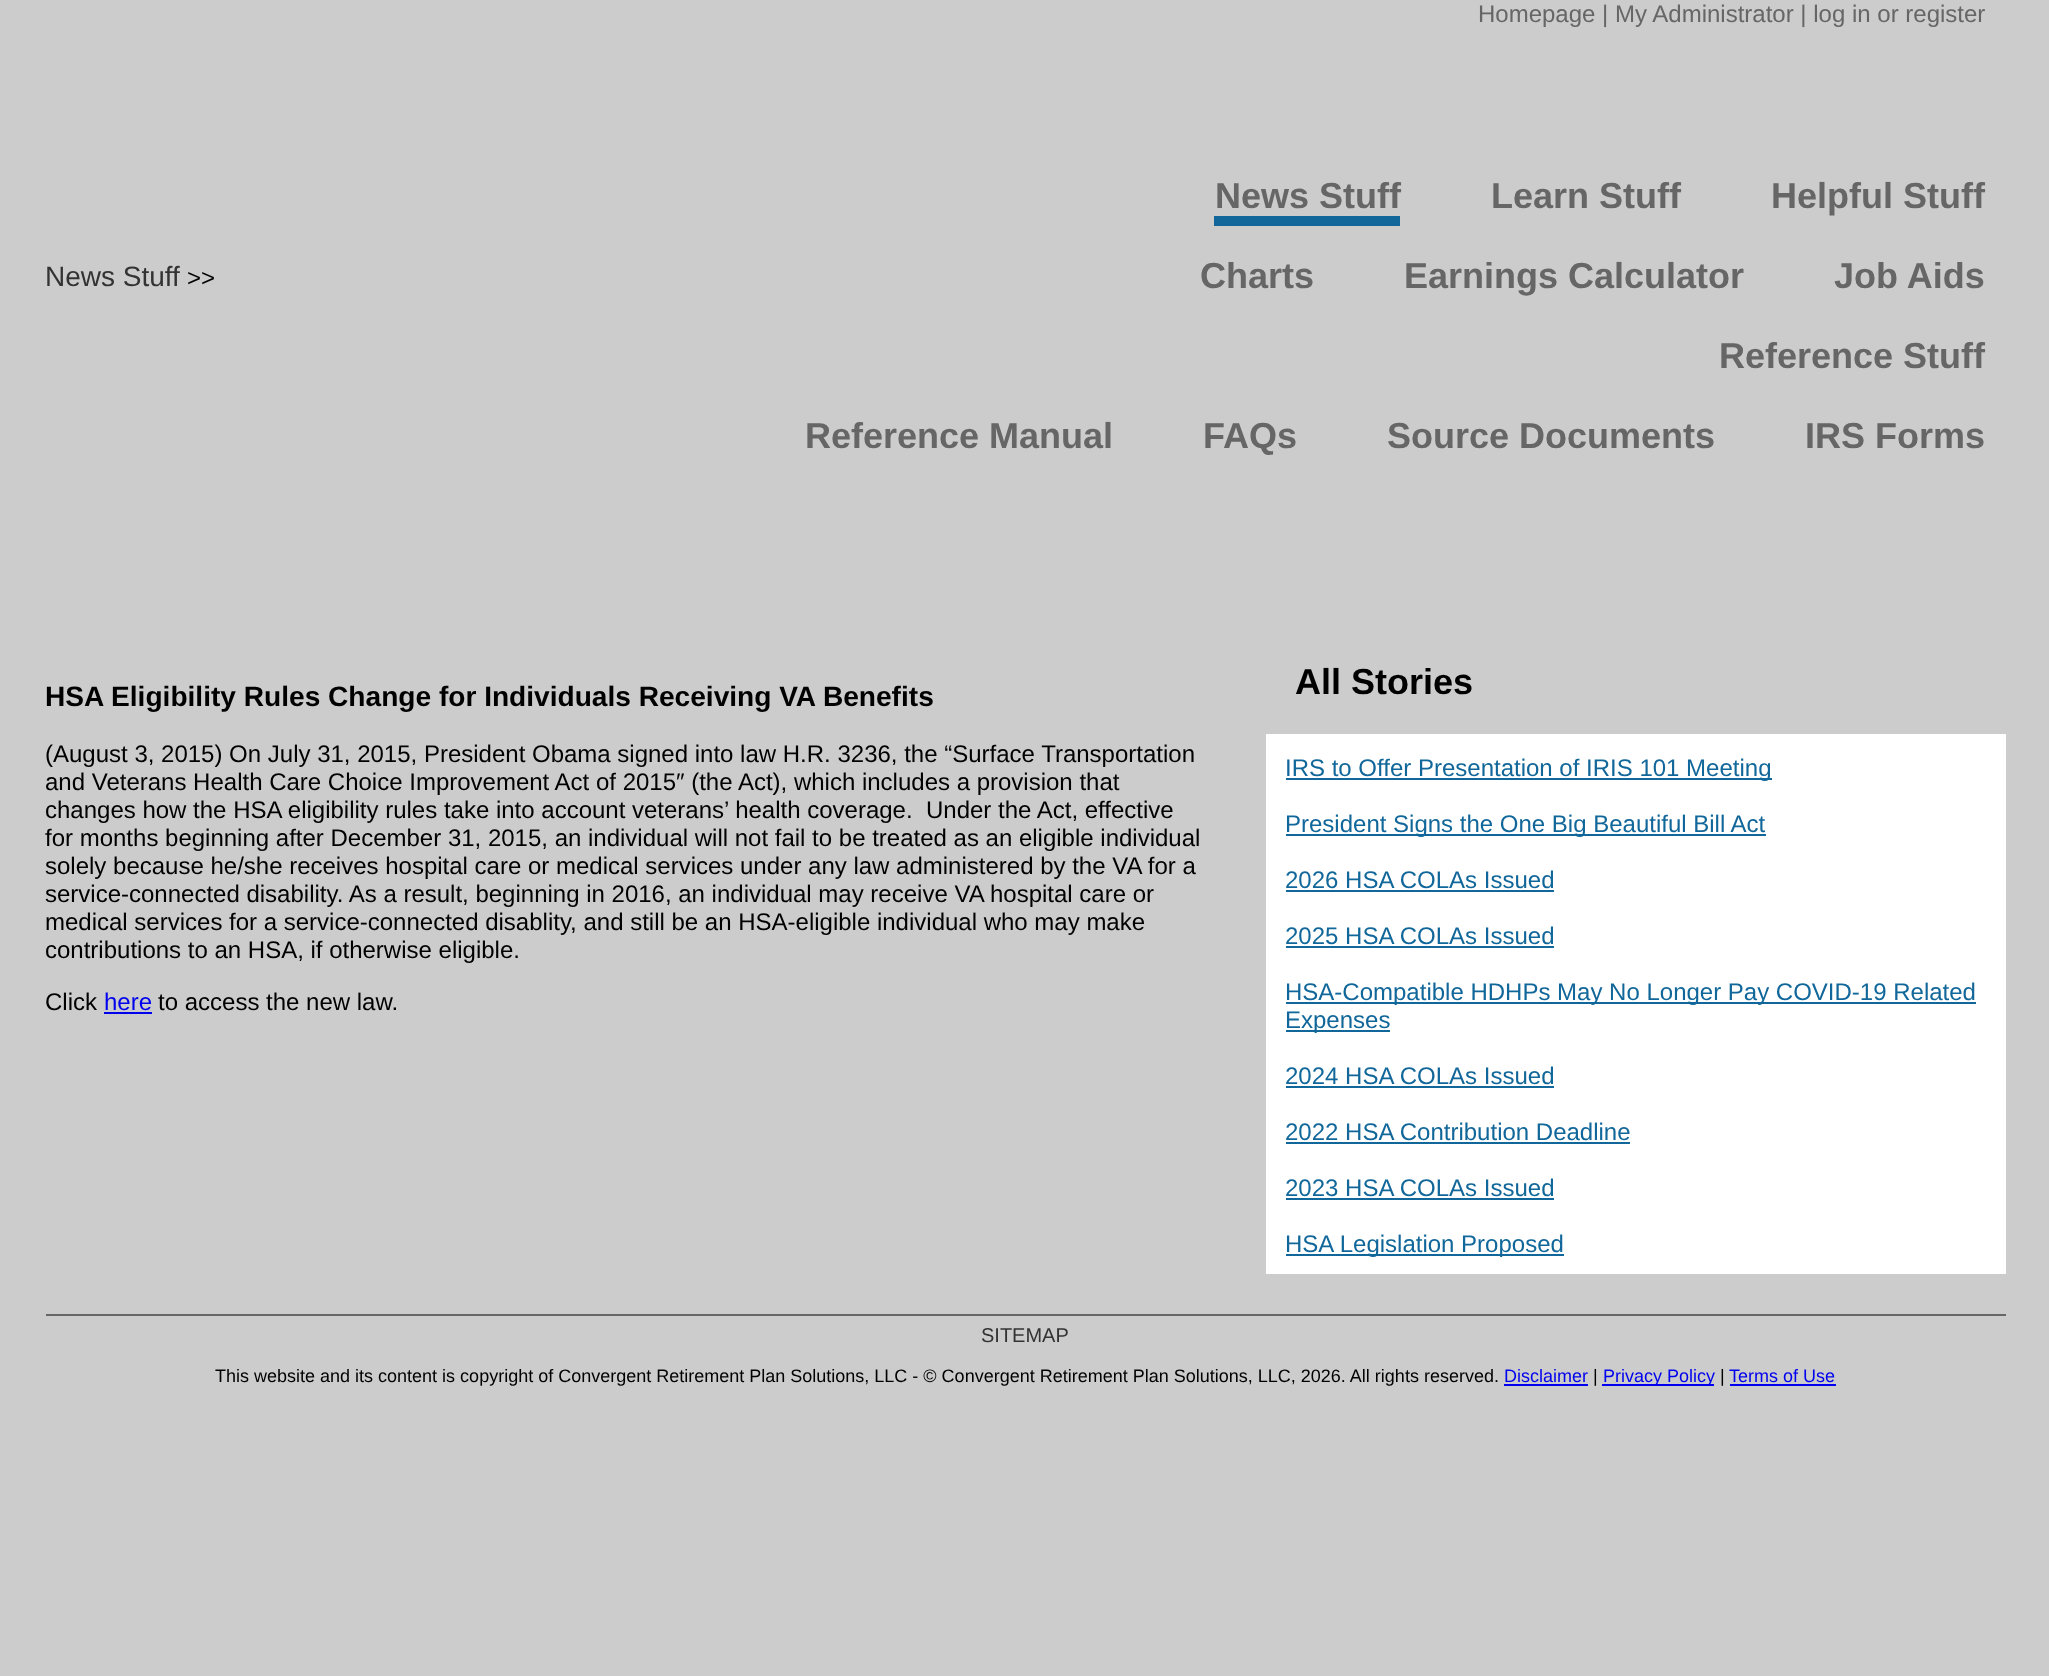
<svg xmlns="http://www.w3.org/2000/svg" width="2049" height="1676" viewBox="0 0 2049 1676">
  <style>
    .t1 { font: 24px Liberation Sans; fill: #666; }
    .t2 { font: bold 36px Liberation Sans; fill: #666; }
    .t3 { font: 28px Liberation Sans; fill: #333; }
    .t4 { font: 24px Liberation Sans; fill: #000; }
    .t5 { font: bold 36px Liberation Sans; fill: #000; }
    .t6 { font: bold 28.1px Liberation Sans; fill: #000; }
    .t7 { font: 24px Liberation Sans; fill: #00e; }
    .t8 { font: 24px Liberation Sans; fill: #11679a; }
    .t9 { font: 20px Liberation Sans; fill: #333; }
    .t10 { font: 18px Liberation Sans; fill: #000; }
    .t11 { font: 18px Liberation Sans; fill: #00e; }
  </style>
  <rect width="100%" height="100%" fill="#ccc"/>
  <text x="1478" y="22" class="t1">Homepage | My Administrator | log in or register</text>
  <text x="1215" y="208" class="t2">News Stuff</text>
  <rect x="1214" y="216" width="186" height="10" fill="#11679a"/>
  <text x="1491" y="208" class="t2">Learn Stuff</text>
  <text x="1771" y="208" class="t2">Helpful Stuff</text>
  <text x="1200" y="288" class="t2">Charts</text>
  <text x="1404" y="288" class="t2">Earnings Calculator</text>
  <text x="1834" y="288" class="t2">Job Aids</text>
  <text x="1719" y="368" class="t2">Reference Stuff</text>
  <text x="805" y="448" class="t2">Reference Manual</text>
  <text x="1203" y="448" class="t2">FAQs</text>
  <text x="1387" y="448" class="t2">Source Documents</text>
  <text x="1805" y="448" class="t2">IRS Forms</text>
  <text x="45" y="286" class="t3">News Stuff</text>
  <text x="187" y="286" class="t4">&gt;&gt;</text>
  <text x="1295" y="694" class="t5">All Stories</text>
  <text x="45" y="706" class="t6">HSA Eligibility Rules Change for Individuals Receiving VA Benefits</text>
  <text x="45" y="762" class="t4">(August 3, 2015) On July 31, 2015, President Obama signed into law H.R. 3236, the “Surface Transportation</text>
  <text x="45" y="790" class="t4">and Veterans Health Care Choice Improvement Act of 2015″ (the Act), which includes a provision that</text>
  <text x="45" y="818" class="t4" xml:space="preserve">changes how the HSA eligibility rules take into account veterans’ health coverage.  Under the Act, effective</text>
  <text x="45" y="846" class="t4">for months beginning after December 31, 2015, an individual will not fail to be treated as an eligible individual</text>
  <text x="45" y="874" class="t4">solely because he/she receives hospital care or medical services under any law administered by the VA for a</text>
  <text x="45" y="902" class="t4">service-connected disability. As a result, beginning in 2016, an individual may receive VA hospital care or</text>
  <text x="45" y="930" class="t4">medical services for a service-connected disablity, and still be an HSA-eligible individual who may make</text>
  <text x="45" y="958" class="t4">contributions to an HSA, if otherwise eligible.</text>
  <text x="45" y="1010" class="t4">Click</text>
  <text x="104" y="1010" class="t7">here</text>
  <rect x="104" y="1012" width="48" height="2" fill="#00e"/>
  <text x="158" y="1010" class="t4">to access the new law.</text>
  <rect x="1266" y="734" width="740" height="540" fill="#fff"/>
  <rect x="1286" y="778" width="486" height="2" fill="#11679a"/>
  <text x="1285" y="776" class="t8">IRS to Offer Presentation of IRIS 101 Meeting</text>
  <rect x="1286" y="834" width="480" height="2" fill="#11679a"/>
  <text x="1285" y="832" class="t8">President Signs the One Big Beautiful Bill Act</text>
  <text x="1285" y="888" class="t8">2026 HSA COLAs Issued</text>
  <rect x="1286" y="890" width="268" height="2" fill="#11679a"/>
  <text x="1285" y="944" class="t8">2025 HSA COLAs Issued</text>
  <rect x="1286" y="946" width="268" height="2" fill="#11679a"/>
  <rect x="1286" y="1002" width="690" height="2" fill="#11679a"/>
  <text x="1285" y="1000" class="t8">HSA-Compatible HDHPs May No Longer Pay COVID-19 Related</text>
  <rect x="1286" y="1030" width="104" height="2" fill="#11679a"/>
  <text x="1285" y="1028" class="t8">Expenses</text>
  <text x="1285" y="1084" class="t8">2024 HSA COLAs Issued</text>
  <rect x="1286" y="1086" width="268" height="2" fill="#11679a"/>
  <text x="1285" y="1140" class="t8">2022 HSA Contribution Deadline</text>
  <rect x="1286" y="1142" width="344" height="2" fill="#11679a"/>
  <text x="1285" y="1196" class="t8">2023 HSA COLAs Issued</text>
  <rect x="1286" y="1198" width="268" height="2" fill="#11679a"/>
  <rect x="1286" y="1254" width="278" height="2" fill="#11679a"/>
  <text x="1285" y="1252" class="t8">HSA Legislation Proposed</text>
  <rect x="46" y="1314" width="1960" height="2" fill="#666"/>
  <text x="981" y="1342" class="t9">SITEMAP</text>
  <text x="215" y="1382" class="t10">This website and its content is copyright of Convergent Retirement Plan Solutions, LLC - © Convergent Retirement Plan Solutions, LLC, 2026. All rights reserved.</text>
  <text x="1504" y="1382" class="t11">Disclaimer</text>
  <rect x="1504" y="1384" width="84" height="2" fill="#00e"/>
  <text x="1593" y="1382" class="t10">|</text>
  <rect x="1602" y="1384" width="112" height="2" fill="#00e"/>
  <text x="1603" y="1382" class="t11">Privacy Policy</text>
  <text x="1720" y="1382" class="t10">|</text>
  <text x="1729" y="1382" class="t11">Terms of Use</text>
  <rect x="1730" y="1384" width="106" height="2" fill="#00e"/>
</svg>
